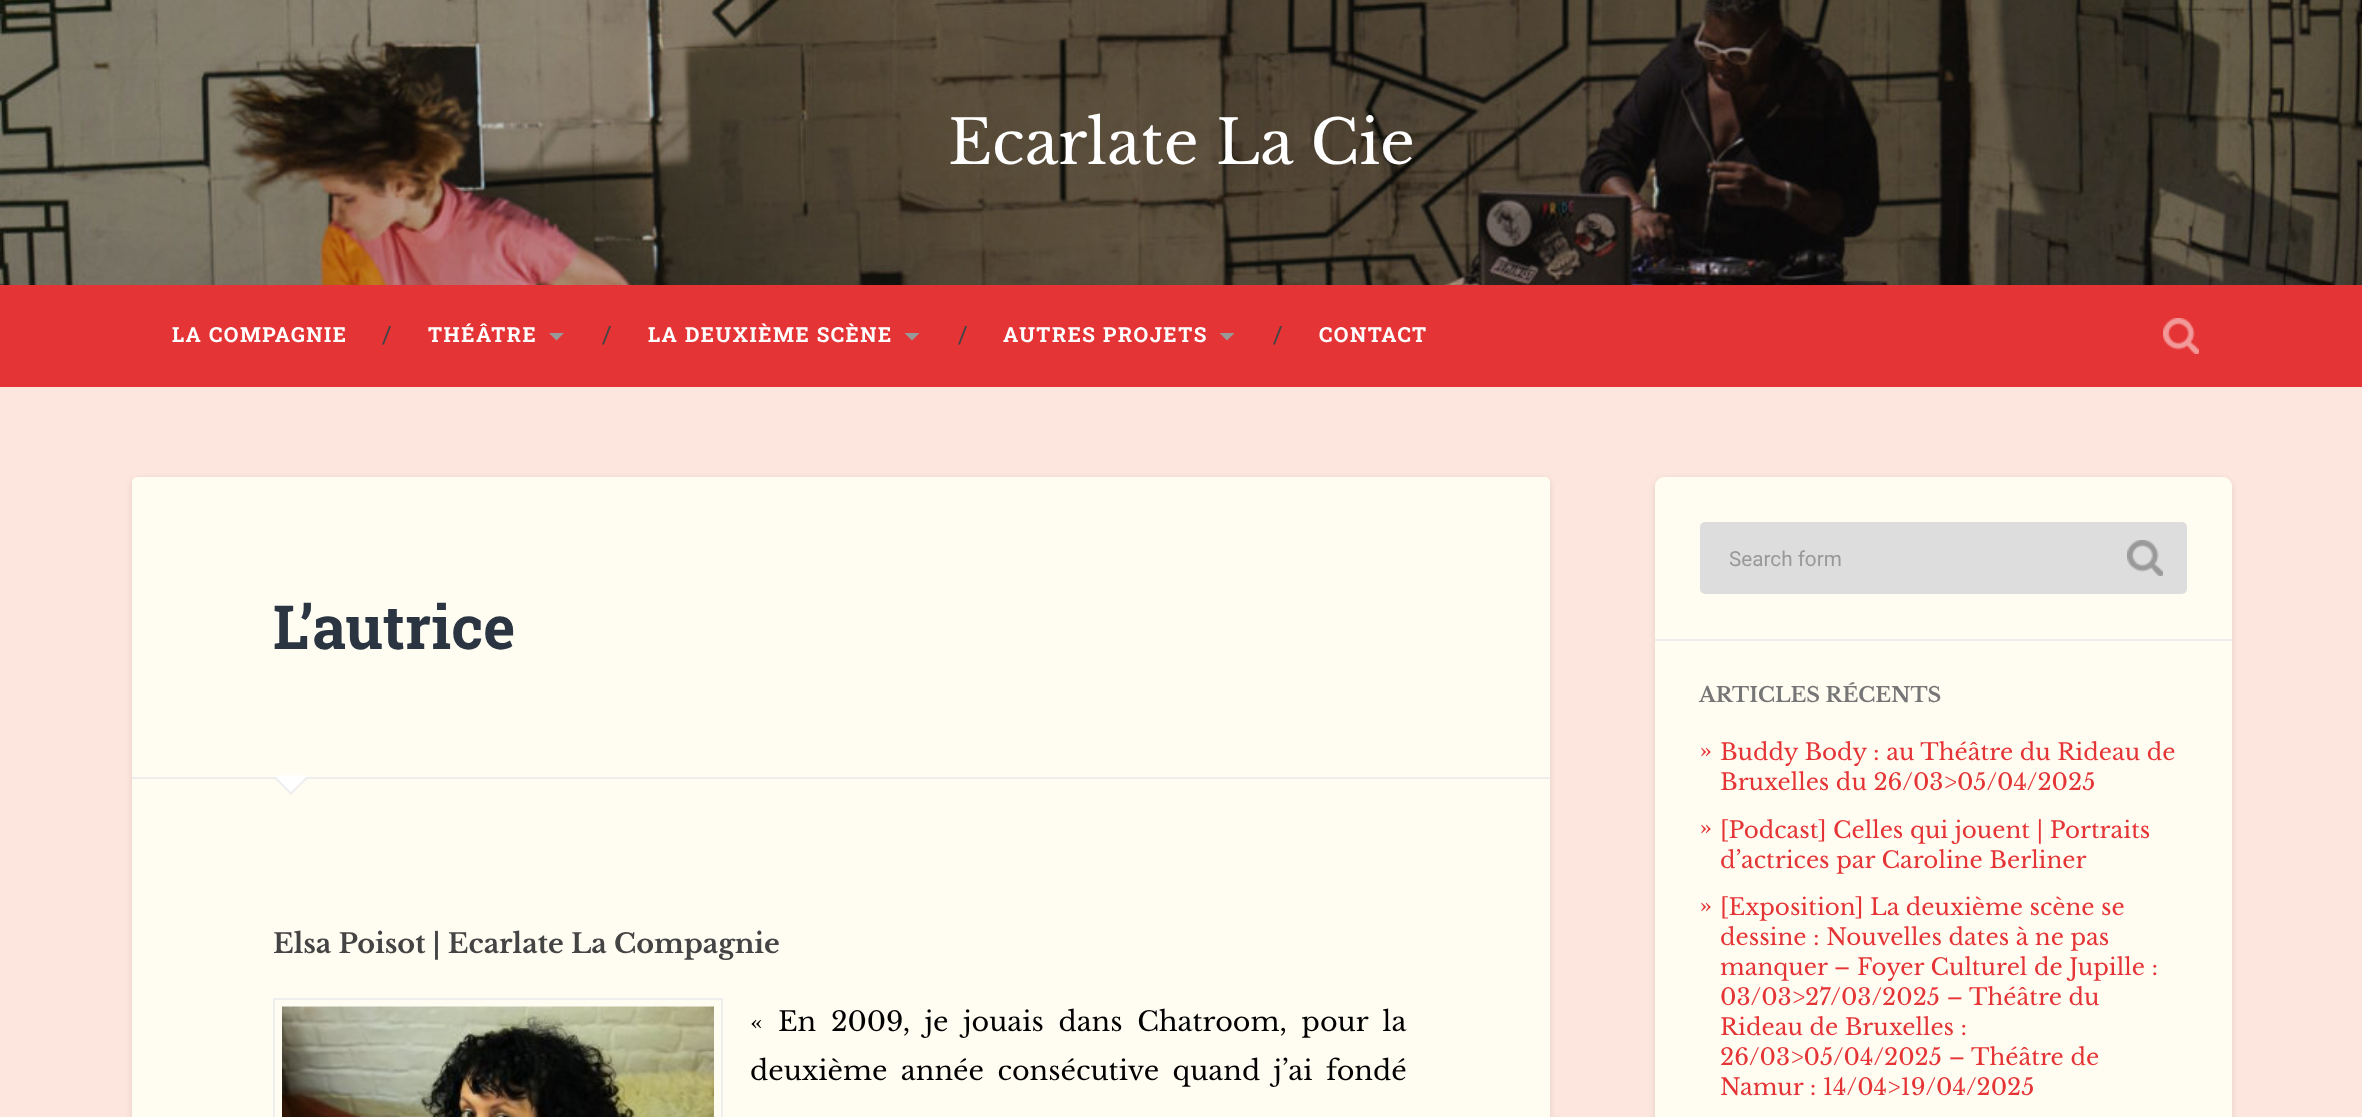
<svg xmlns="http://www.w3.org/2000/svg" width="2362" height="1117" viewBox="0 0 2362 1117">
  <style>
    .t1 { font: 60.75px Libre Baskerville; fill: #fff; }
    .t2 { font: bold 20.7px Roboto Slab; letter-spacing: 1.5px; fill: #fff; }
    .t3 { font: 24px Roboto Slab; fill: #444; }
    .t4 { font: bold 60.75px Roboto Slab; fill: #2b3542; }
    .t5 { font: bold 27px Libre Baskerville; fill: #444; }
    .t6 { font: 27px Libre Baskerville; fill: #000; }
    .t7 { font: 20.7px Roboto; fill: #999; }
    .t8 { font: bold 20.7px Libre Baskerville; fill: #767676; }
    .t9 { font: 27px Libre Baskerville; fill: #e53435; }
    .t10 { font: 23px Libre Baskerville; fill: #e53435; }
  </style>
  <defs>
    <clipPath id="clip1"><rect x="1730" y="546" width="375" height="24"/></clipPath>
  </defs>
  <rect width="100%" height="100%" fill="#fce6dd"/>
  <image x="0" y="0" width="2362" height="285" href="images/1.png"/>
  <text x="948" y="164" class="t1">Ecarlate La Cie</text>
  <rect x="0" y="285" width="2362" height="102" fill="#e53435"/>
  <text x="172" y="342" class="t2">LA COMPAGNIE</text>
  <text x="382" y="343" class="t3">/</text>
  <text x="428" y="342" class="t2">THÉÂTRE</text>
  <path d="M549 333H564L556.5 340.5Z" fill="#999"/>
  <text x="602" y="343" class="t3">/</text>
  <text x="648" y="342" class="t2">LA DEUXIÈME SCÈNE</text>
  <path d="M904.5 333H919.5L912 340.5Z" fill="#999"/>
  <text x="958" y="343" class="t3">/</text>
  <text x="1003" y="342" class="t2">AUTRES PROJETS</text>
  <path d="M1219.5 333H1234.5L1227 340.5Z" fill="#999"/>
  <text x="1273" y="343" class="t3">/</text>
  <text x="1319" y="342" class="t2">CONTACT</text>
  <image x="2163" y="318" width="36" height="36" href="images/2.png"/>
  <rect x="132" y="479" width="1418" height="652" rx="5" fill="#0000001a" filter="blur(3px)"/>
  <rect x="132" y="477" width="1418" height="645" rx="5" fill="#fffcf2"/>
  <rect x="132" y="777" width="1418" height="2" fill="#eee"/>
  <text x="273" y="649" class="t4">L’autrice</text>
  <path d="M273 777H309L291 795Z" fill="#eee"/>
  <path d="M274.5 775.5H307.5L291 792Z" fill="#fff"/>
  <text x="273" y="953" class="t5">Elsa Poisot | Ecarlate La Compagnie</text>
  <rect x="274" y="999" width="448" height="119" fill="none" stroke="#eee" stroke-width="2"/>
  <image x="282" y="1006" width="432" height="111" href="images/3.png"/>
  <text x="750" y="1031" word-spacing="7" class="t6">« En 2009, je jouais dans Chatroom, pour la</text>
  <text x="750" y="1080" word-spacing="5.75" class="t6">deuxième année consécutive quand j’ai fondé</text>
  <rect x="1655" y="479" width="577" height="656" rx="9" fill="#0000001a" filter="blur(3px)"/>
  <rect x="1655" y="477" width="577" height="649" rx="9" fill="#fffcf2"/>
  <rect x="1700" y="522" width="487" height="72" rx="5" fill="#ddd"/>
  <g clip-path="url(#clip1)">
    <text x="1729" y="566" class="t7">Search form</text>
  </g>
  <image x="2127" y="540" width="36" height="36" href="images/4.png"/>
  <rect x="1655" y="639" width="577" height="2" fill="#eee"/>
  <text x="1699" y="702" class="t8">ARTICLES RÉCENTS</text>
  <text x="1699" y="759" class="t9">»</text>
  <text x="1720" y="760" class="t10">Buddy Body : au Théâtre du Rideau de</text>
  <text x="1720" y="790" class="t10">Bruxelles du 26/03&gt;05/04/2025</text>
  <text x="1699" y="836" class="t9">»</text>
  <text x="1720" y="838" class="t10">[Podcast] Celles qui jouent | Portraits</text>
  <text x="1720" y="868" class="t10">d’actrices par Caroline Berliner</text>
  <text x="1699" y="914" class="t9">»</text>
  <text x="1720" y="915" class="t10">[Exposition] La deuxième scène se</text>
  <text x="1720" y="945" class="t10">dessine : Nouvelles dates à ne pas</text>
  <text x="1720" y="975" class="t10">manquer – Foyer Culturel de Jupille :</text>
  <text x="1720" y="1005" class="t10">03/03&gt;27/03/2025 – Théâtre du</text>
  <text x="1720" y="1035" class="t10">Rideau de Bruxelles :</text>
  <text x="1720" y="1065" class="t10">26/03&gt;05/04/2025 – Théâtre de</text>
  <text x="1720" y="1095" class="t10">Namur : 14/04&gt;19/04/2025</text>
</svg>
